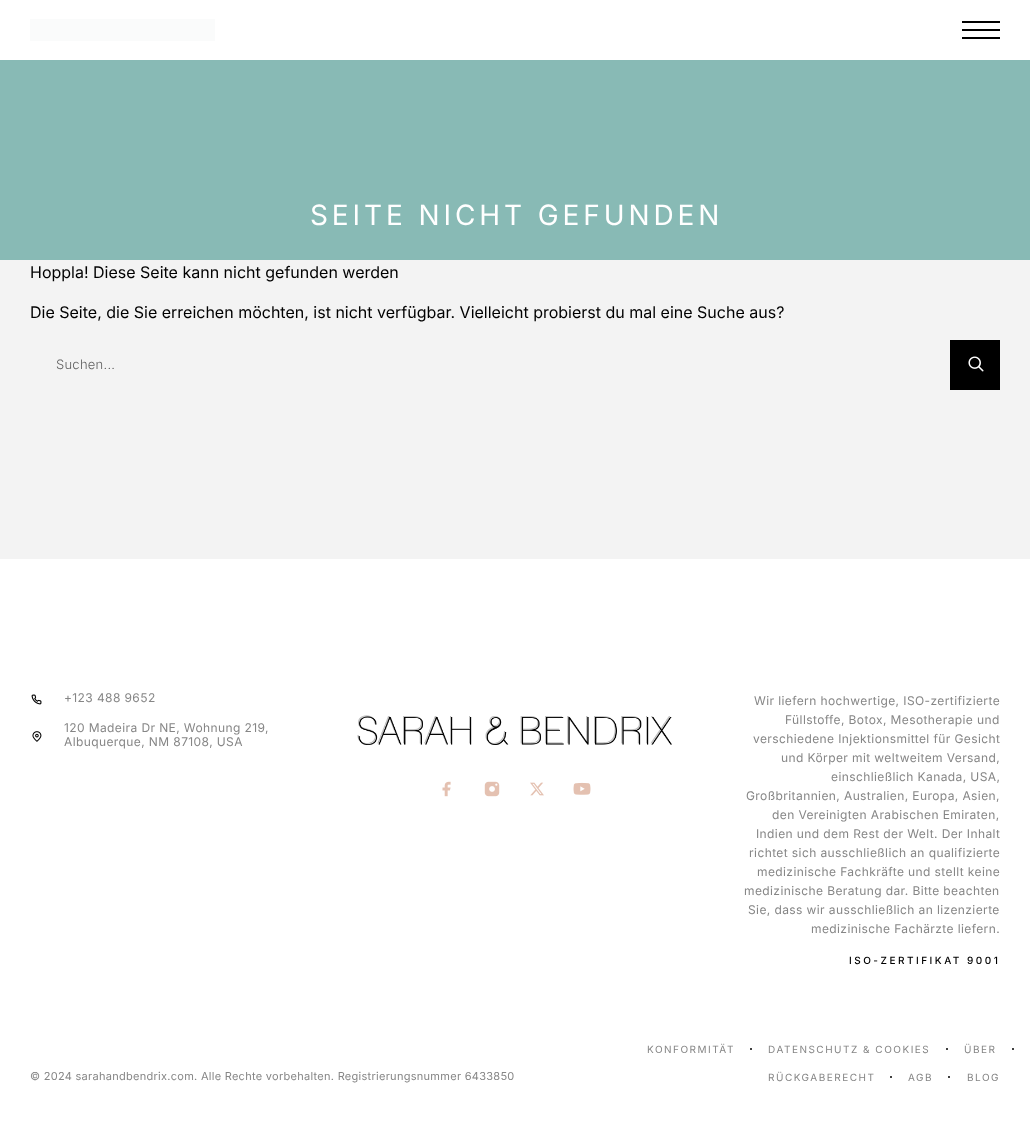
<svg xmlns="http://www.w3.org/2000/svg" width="1030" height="1127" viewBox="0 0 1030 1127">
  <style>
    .t1 { font: 28px Inter; letter-spacing: 3.9px; fill: #fff; }
    .t2 { font: 16px Inter; fill: #000; }
    .t3 { font: 300 13px Inter; letter-spacing: 0.25px; fill: #616161; }
    .t4 { font: 12px Inter; letter-spacing: 0.4px; fill: #868686; }
    .t5 { font: 500 10px Inter; letter-spacing: 2.5px; fill: #000; }
    .t6 { font: 11px Inter; letter-spacing: 0.28px; fill: #868686; }
    .t7 { font: 10px Inter; letter-spacing: 1.5px; fill: #868686; }
  </style>
  <rect width="100%" height="100%" fill="#f3f3f3"/>
  <rect x="0" y="0" width="1030" height="60" fill="#fff"/>
  <rect x="30" y="19" width="185" height="22" fill="#fafbfb"/>
  <path d="M1000 37V39H962V37ZM1000 29V31H962V29ZM1000 21V23H962V21Z" fill="#000"/>
  <rect x="0" y="60" width="1030" height="200" fill="#88bab5"/>
  <text x="310" y="225" class="t1">SEITE NICHT GEFUNDEN</text>
  <text x="30" y="278" class="t2">Hoppla! Diese Seite kann nicht gefunden werden</text>
  <text x="30" y="318" class="t2">Die Seite, die Sie erreichen möchten, ist nicht verfügbar. Vielleicht probierst du mal eine Suche aus?</text>
  <text x="56" y="369" class="t3">Suchen...</text>
  <rect x="950" y="340" width="50" height="50" fill="#000"/>
  <image x="968" y="356" width="16" height="16" href="images/1.png"/>
  <rect x="0" y="559" width="1030" height="568" fill="#fff"/>
  <image x="31" y="694" width="11" height="11" href="images/2.png"/>
  <text x="64" y="702" class="t4">+123 488 9652</text>
  <image x="32" y="731" width="10" height="11" href="images/3.png"/>
  <text x="64" y="732" class="t4">120 Madeira Dr NE, Wohnung 219,</text>
  <text x="64" y="746" class="t4">Albuquerque, NM 87108, USA</text>
  <image x="357" y="715" width="315" height="30" href="images/4.png"/>
  <image x="442" y="781" width="9" height="16" href="images/5.png"/>
  <image x="484" y="781" width="16" height="16" href="images/6.png"/>
  <image x="530" y="782" width="14" height="14" href="images/7.png"/>
  <image x="573" y="782" width="18" height="13" href="images/8.png"/>
  <text x="754" y="705" class="t4">Wir liefern hochwertige, ISO-zertifizierte</text>
  <text x="785" y="724" class="t4">Füllstoffe, Botox, Mesotherapie und</text>
  <text x="753" y="743" class="t4">verschiedene Injektionsmittel für Gesicht</text>
  <text x="781" y="762" class="t4">und Körper mit weltweitem Versand,</text>
  <text x="831" y="781" class="t4">einschließlich Kanada, USA,</text>
  <text x="746" y="800" class="t4">Großbritannien, Australien, Europa, Asien,</text>
  <text x="772" y="819" class="t4">den Vereinigten Arabischen Emiraten,</text>
  <text x="756" y="838" class="t4">Indien und dem Rest der Welt. Der Inhalt</text>
  <text x="749" y="857" class="t4">richtet sich ausschließlich an qualifizierte</text>
  <text x="757" y="876" class="t4">medizinische Fachkräfte und stellt keine</text>
  <text x="744" y="895" class="t4">medizinische Beratung dar. Bitte beachten</text>
  <text x="748" y="914" class="t4">Sie, dass wir ausschließlich an lizenzierte</text>
  <text x="811" y="933" class="t4">medizinische Fachärzte liefern.</text>
  <text x="849" y="964" class="t5">ISO-ZERTIFIKAT 9001</text>
  <text x="30" y="1080" class="t6">© 2024 sarahandbendrix.com. Alle Rechte vorbehalten. Registrierungsnummer 6433850</text>
  <text x="647" y="1053" class="t7">KONFORMITÄT</text>
  <rect x="750" y="1048" width="2" height="2" fill="#404040"/>
  <text x="768" y="1053" class="t7">DATENSCHUTZ &amp; COOKIES</text>
  <rect x="946" y="1048" width="2" height="2" fill="#404040"/>
  <text x="964" y="1053" class="t7">ÜBER</text>
  <rect x="1012" y="1048" width="2" height="2" fill="#404040"/>
  <text x="768" y="1081" class="t7">RÜCKGABERECHT</text>
  <rect x="890" y="1076" width="2" height="2" fill="#404040"/>
  <text x="908" y="1081" class="t7">AGB</text>
  <rect x="948" y="1076" width="2" height="2" fill="#404040"/>
  <text x="967" y="1081" class="t7">BLOG</text>
</svg>
